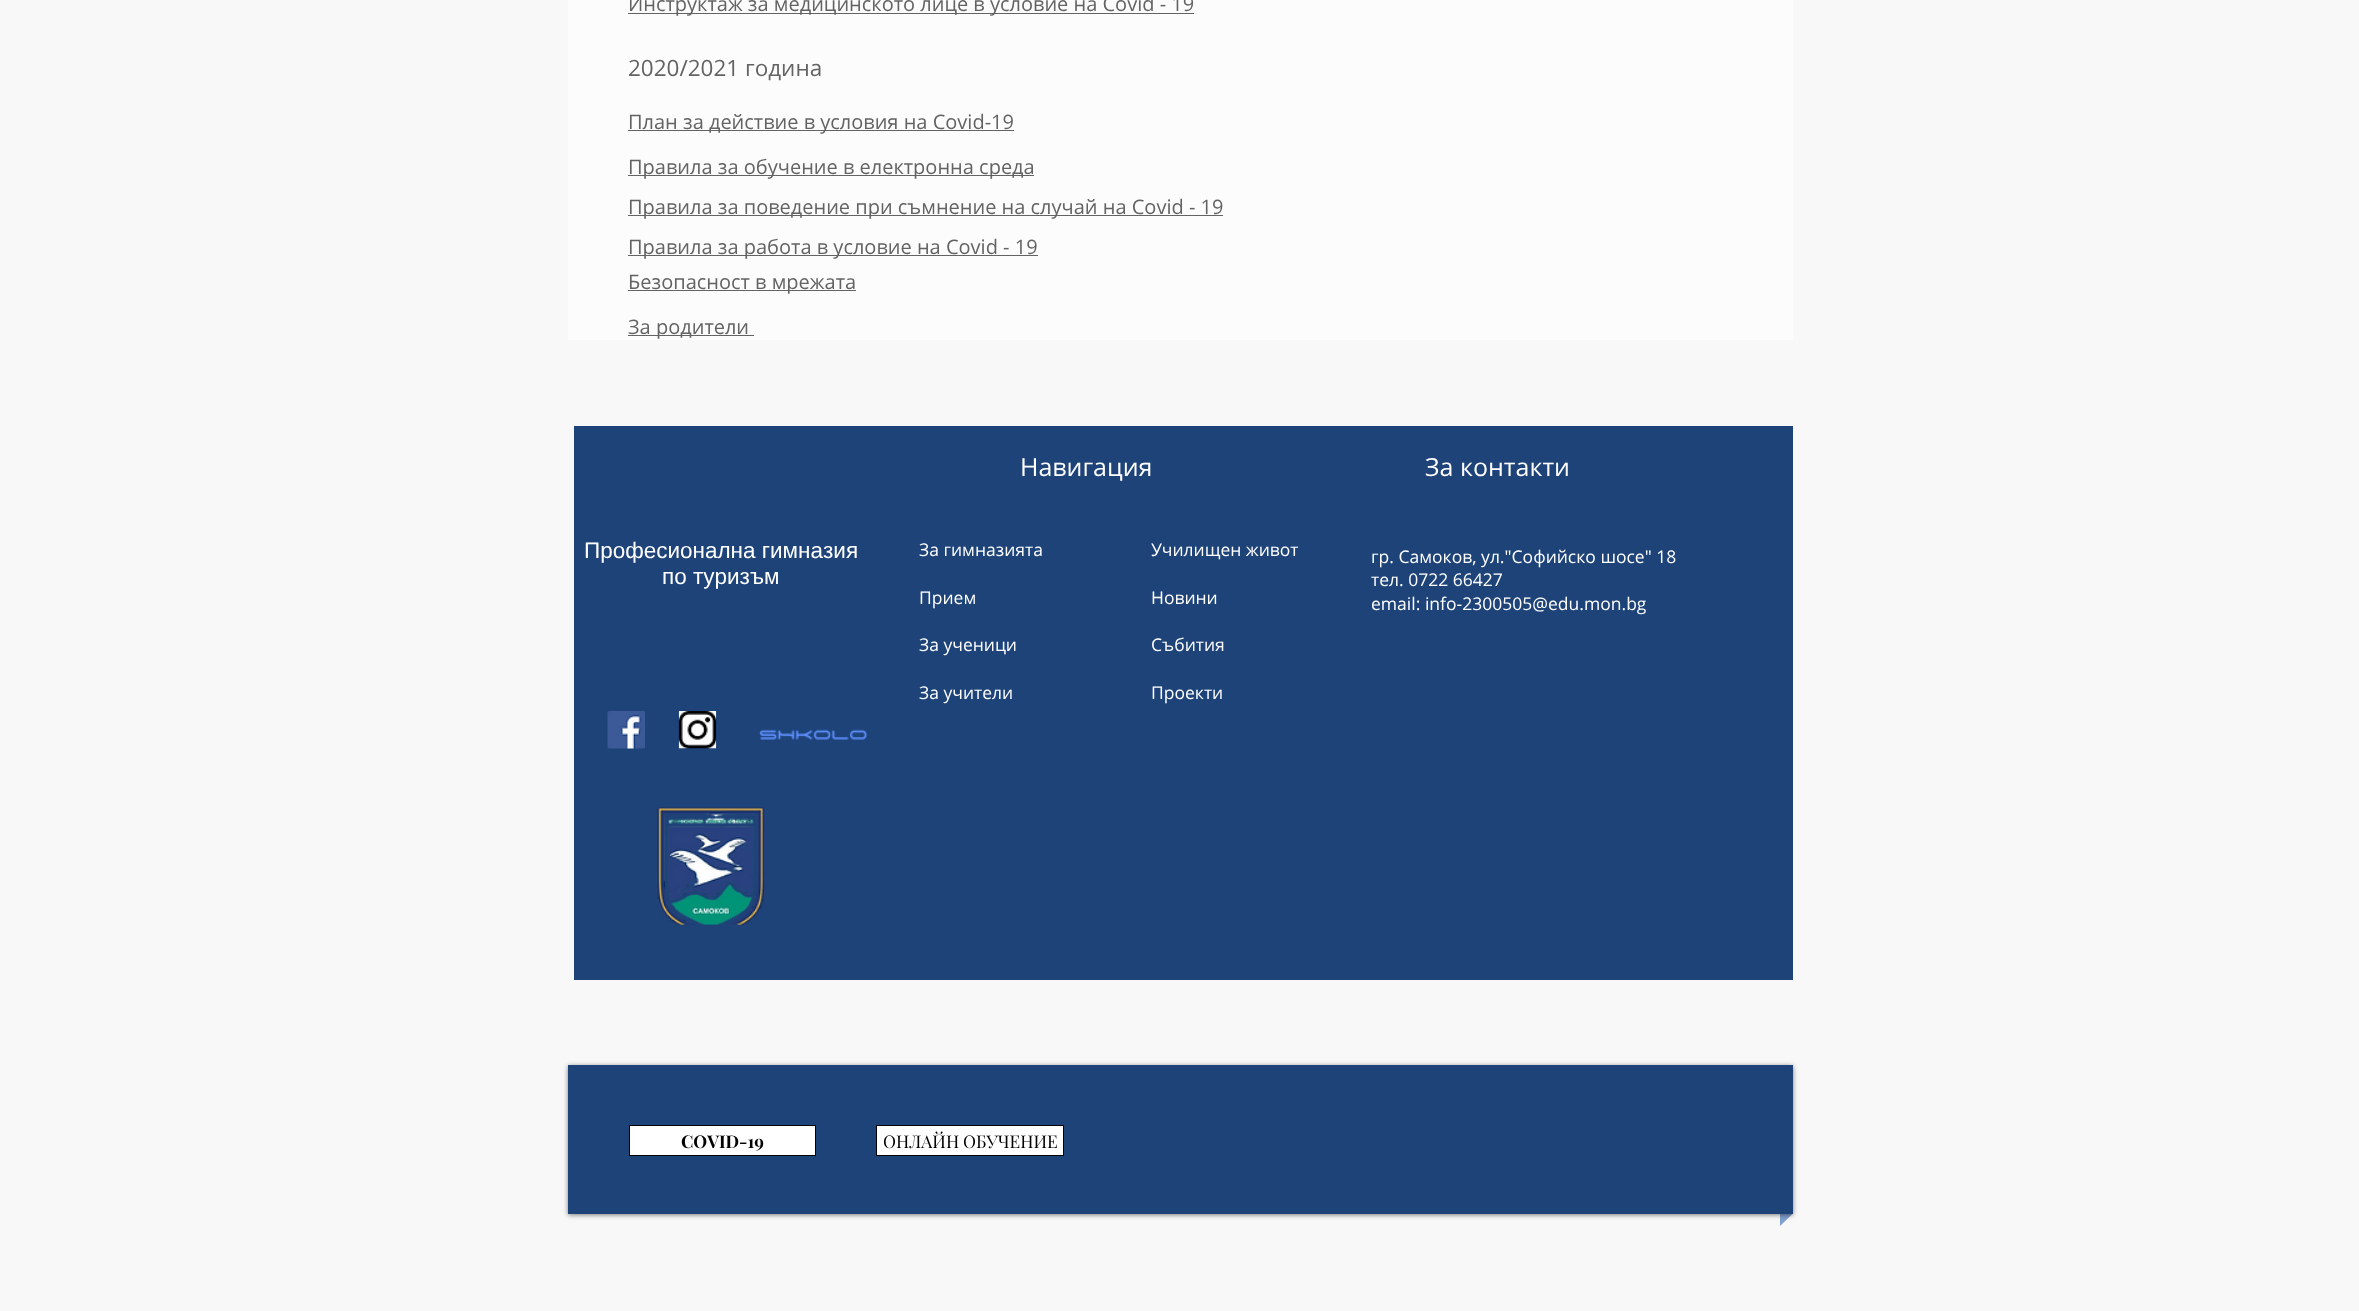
<svg xmlns="http://www.w3.org/2000/svg" width="2359" height="1311" viewBox="0 0 2359 1311">
  <style>*{font-kerning:none!important;font-variant-ligatures:none!important}</style>
  <style>
    .t1 { font: 20px Open Sans; fill: #636363; }
    .t2 { font: 22.5px Open Sans; fill: #636363; }
    .t3 { font: 25px Open Sans; fill: #fff; }
    .t4 { font: 22.5px Liberation Sans; fill: #fff; }
    .t5 { font: 17.5px Open Sans; fill: #fff; }
    .t6 { font: bold 17.5px Playfair Display; fill: #000; }
    .t7 { font: 17.5px Playfair Display; fill: #000; }
  </style>
  <rect width="100%" height="100%" fill="#f8f8f8"/>
  <rect x="568" y="0" width="1225" height="340" fill="#fcfcfc"/>
  <rect x="628" y="13" width="566" height="1" fill="#636363"/>
  <text x="628" y="11" class="t1">Инструктаж за медицинското лице в условие на Covid - 19</text>
  <text x="628" y="76" class="t2">2020/2021 година</text>
  <rect x="628" y="130" width="386" height="1" fill="#636363"/>
  <text x="628" y="129" class="t1">План за действие в условия на Covid-19</text>
  <rect x="628" y="175" width="406" height="1" fill="#636363"/>
  <text x="628" y="174" class="t1">Правила за обучение в електронна среда</text>
  <rect x="628" y="215" width="595" height="1" fill="#636363"/>
  <text x="628" y="214" class="t1">Правила за поведение при съмнение на случай на Covid - 19</text>
  <rect x="628" y="255" width="410" height="1" fill="#636363"/>
  <text x="628" y="254" class="t1">Правила за работа в условие на Covid - 19</text>
  <rect x="628" y="290" width="228" height="1" fill="#636363"/>
  <text x="628" y="289" class="t1">Безопасност в мрежата</text>
  <rect x="628" y="335" width="126" height="1" fill="#636363"/>
  <text x="628" y="334" class="t1">За родители</text>
  <rect x="574" y="426" width="1219" height="554" fill="#1d4379"/>
  <text x="1020" y="476" class="t3">Навигация</text>
  <text x="1425" y="476" class="t3">За контакти</text>
  <text x="584" y="558" class="t4"> Професионална гимназия</text>
  <text x="662" y="584" class="t4">по туризъм</text>
  <text x="919" y="556" class="t5">За гимназията</text>
  <text x="919" y="604" class="t5">Прием</text>
  <text x="919" y="651" class="t5">За ученици</text>
  <text x="919" y="699" class="t5">За учители</text>
  <text x="1151" y="556" class="t5">Училищен живот</text>
  <text x="1151" y="604" class="t5">Новини</text>
  <text x="1151" y="651" class="t5">Събития</text>
  <text x="1151" y="699" class="t5">Проекти</text>
  <text x="1371" y="563" class="t5">гр. Самоков, ул."Софийско шосе" 18</text>
  <text x="1371" y="586" class="t5">тел. 0722 66427</text>
  <text x="1371" y="610" class="t5">email: info-2300505@edu.mon.bg</text>
  <image x="607" y="711" width="38" height="38" href="images/1.png"/>
  <image x="678" y="711" width="39" height="38" href="images/2.png"/>
  <image x="759" y="729" width="109" height="11" href="images/3.png"/>
  <image x="656" y="807" width="110" height="118" href="images/4.png"/>
  <path d="M1780 1214H1792.5L1780 1226Z" fill="#80a0ce"/>
  <rect x="568" y="1066" width="1225" height="149" fill="#00000080" filter="blur(2.5px)"/>
  <rect x="568" y="1065" width="1225" height="149" fill="#1d4379"/>
  <rect x="629.5" y="1125.5" width="186" height="30" fill="#fff" stroke="#000"/>
  <text x="681" y="1148" class="t6">COVID-19</text>
  <rect x="876.5" y="1125.5" width="187" height="30" fill="#fff" stroke="#000"/>
  <text x="883" y="1148" class="t7">ОНЛАЙН</text>
  <text x="963" y="1148" class="t7">ОБУЧЕНИЕ</text>
</svg>
